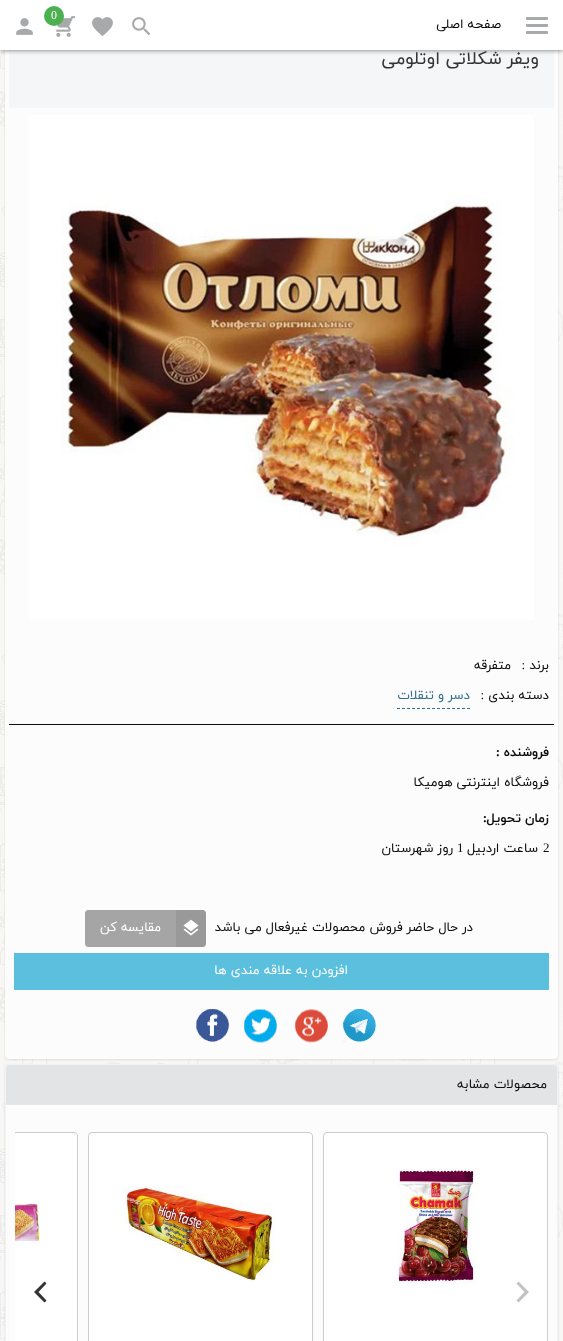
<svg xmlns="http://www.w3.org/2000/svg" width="563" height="1341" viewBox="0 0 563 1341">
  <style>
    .t1 { font: 12px Liberation Serif; fill: #fff; }
    .t2 { font: 13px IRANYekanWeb; direction: rtl; fill: #0d0c0c; }
    .t3 { font: 18px IRANYekanWeb; direction: rtl; fill: #333; }
    .t4 { font: 13px Liberation Serif; direction: rtl; fill: #0d0c0c; }
    .t5 { font: 13px IRANYekanWeb; direction: rtl; fill: #31708f; }
    .t6 { font: bold 13px IRANYekanWeb; direction: rtl; fill: #0d0c0c; }
    .t7 { font: bold 13px Liberation Serif; direction: rtl; fill: #0d0c0c; }
    .t8 { font: 13px Liberation Serif; fill: #0d0c0c; }
    .t9 { font: 13px IRANYekanWeb; direction: rtl; fill: #fff; }
  </style>
  <defs>
    <clipPath id="clip1"><rect x="15" y="1132" width="533" height="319"/></clipPath>
  </defs>
  <rect width="100%" height="100%" fill="#fff"/>
  <image x="0" y="50" width="563" height="1291" href="images/1.png"/>
  <rect x="5" y="26" width="553" height="1034" rx="4" fill="#0000001a" filter="blur(1px)"/>
  <rect x="5" y="25" width="553" height="1034" rx="4" fill="#fcfcfc"/>
  <rect x="9" y="34" width="545" height="74" rx="2" fill="#f5f6f7"/>
  <rect x="0" y="1" width="563" height="50" fill="#00000066" filter="blur(2px)"/>
  <rect x="0" y="0" width="563" height="50" fill="#fff"/>
  <image x="56" y="16" width="19" height="21" href="images/2.png"/>
  <circle cx="54" cy="16" r="10" fill="#4caf50"/>
  <text x="51" y="19" class="t1">0</text>
  <rect x="526" y="17" width="22" height="3" rx="1" fill="#a8a9ab"/>
  <rect x="526" y="24" width="22" height="3" rx="1" fill="#a8a9ab"/>
  <rect x="526" y="31" width="22" height="3" rx="1" fill="#a8a9ab"/>
  <text x="501" y="28" class="t2">صفحه اصلی</text>
  <image x="132" y="17" width="19" height="19" href="images/3.png"/>
  <image x="92" y="17" width="21" height="20" href="images/4.png"/>
  <image x="16" y="18" width="17" height="17" href="images/5.png"/>
  <text x="539" y="64" class="t3">ویفر شکلاتی اوتلومی</text>
  <rect x="29" y="115" width="505" height="505" fill="#fff"/>
  <image x="61" y="196" width="453" height="350" href="images/6.png"/>
  <rect x="9" y="724" width="545" height="1" fill="#0d0c0c"/>
  <text x="549" y="669" class="t2">برند</text>
  <text x="525" y="669" class="t4">:</text>
  <text x="511" y="669" class="t2">متفرقه</text>
  <text x="549" y="699" class="t2">دسته بندی</text>
  <text x="484" y="699" class="t4">:</text>
  <text x="470" y="699" class="t5">دسر و تنقلات</text>
  <path d="M397 708.5H470" fill="none" stroke="#31708f" stroke-dasharray="3 2"/>
  <text x="549" y="756" class="t6">فروشنده</text>
  <text x="500" y="756" class="t7">:</text>
  <text x="549" y="786" class="t2">فروشگاه اینترنتی هومیکا</text>
  <text x="549" y="822" class="t6">زمان تحویل</text>
  <text x="487" y="822" class="t7">:</text>
  <text x="543" y="852" class="t8">2</text>
  <text x="538" y="852" class="t2">ساعت اردبیل</text>
  <text x="457" y="852" class="t8">1</text>
  <text x="453" y="852" class="t2">روز شهرستان</text>
  <text x="473" y="931" class="t2">در حال حاضر فروش محصولات غیرفعال می باشد</text>
  <path d="M176 910H203C204.5 910 206 911.5 206 913V944C206 945.5 204.5 947 203 947H176Z" fill="#999"/>
  <image x="183" y="919" width="16" height="17" href="images/7.png"/>
  <path d="M88 910H176V947H88C86.5 947 85 945.5 85 944V913C85 911.5 86.5 910 88 910Z" fill="#a5a5a5"/>
  <text x="161" y="931" class="t9">مقایسه کن</text>
  <rect x="14" y="953" width="535" height="37" fill="#5bc0de"/>
  <text x="348" y="974" class="t9">افزودن به علاقه مندی ها</text>
  <image x="343" y="1009" width="33" height="33" href="images/8.png"/>
  <image x="295" y="1009" width="33" height="34" href="images/9.png"/>
  <image x="244" y="1009" width="33" height="34" href="images/10.png"/>
  <image x="196" y="1009" width="33" height="33" href="images/11.png"/>
  <rect x="5" y="1065" width="553" height="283" rx="4" fill="#0000001a" filter="blur(1px)"/>
  <rect x="5.5" y="1064.5" width="552" height="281" rx="3.5" fill="#fcfcfc" stroke="#f0f1f2"/>
  <path d="M9 1065H554C555.5 1065 557 1066.5 557 1068V1105H6V1068C6 1066.5 7.5 1065 9 1065Z" fill="#e3e4e5"/>
  <text x="547" y="1088" class="t2">محصولات مشابه</text>
  <rect x="323.5" y="1132.5" width="224" height="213" rx="3.5" fill="#fff" stroke="#ccc"/>
  <image x="398" y="1168" width="78" height="120" href="images/12.png"/>
  <rect x="88.5" y="1132.5" width="224" height="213" rx="3.5" fill="#fff" stroke="#ccc"/>
  <image x="121" y="1186" width="154" height="96" href="images/13.png"/>
  <path d="M15 1132H74C76 1132 78 1134 78 1136V1341C78 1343 76 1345 74 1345H15Z" fill="#fff"/>
  <g clip-path="url(#clip1)">
    <path d="M6 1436H74C76 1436 78 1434 78 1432V1136C78 1134 76 1132 74 1132H6V1133H74C76 1133 77 1134 77 1136V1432C77 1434 76 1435 74 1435H6Z" fill="#ccc"/>
  </g>
  <image x="15" y="1202" width="25" height="44" href="images/14.png"/>
  <path d="M529 1292L518.5 1281.5L516.5 1283.5L524.5 1292L516.5 1300.5L518.5 1302.5Z" fill="#c2c2c2"/>
  <path d="M34 1292L44.5 1302.5L46.5 1300.5L38.5 1292L46.5 1283.5L44.5 1281.5Z" fill="#333"/>
</svg>
